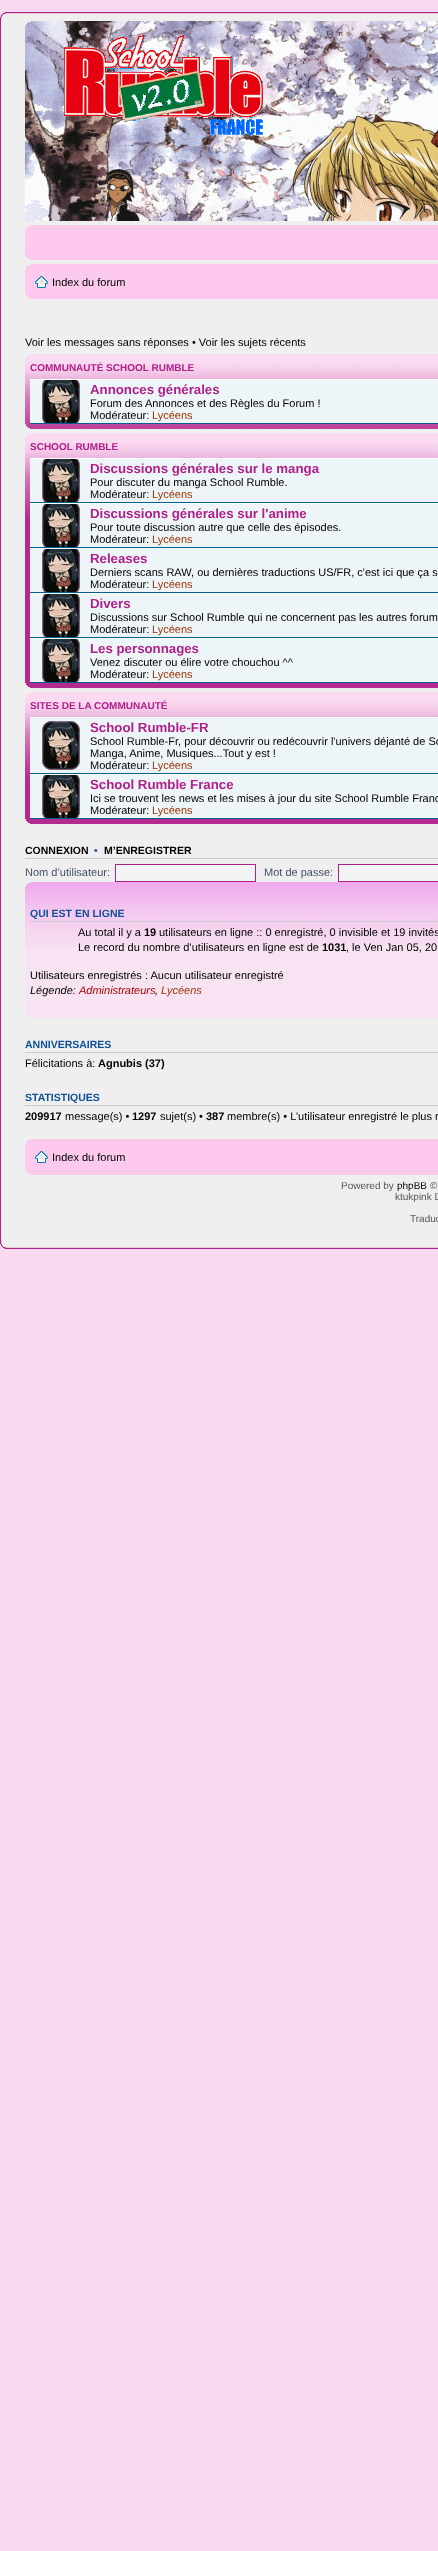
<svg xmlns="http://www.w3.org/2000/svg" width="438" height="2551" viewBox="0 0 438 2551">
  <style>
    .t1 { font: 11px Liberation Sans; fill: #000; }
    .t2 { font: bold 10px Liberation Sans; fill: #b02089; }
    .t3 { font: bold 13.25px Liberation Sans; fill: #b02089; }
    .t4 { font: 11px Liberation Sans; fill: #930; }
    .t5 { font: bold 10.5px Liberation Sans; fill: #000; }
    .t6 { font: bold 10.5px Liberation Sans; fill: #115098; }
    .t7 { font: 11px Liberation Sans; fill: #425067; }
    .t8 { font: bold 11px Liberation Sans; fill: #000; }
    .t9 { font: italic 11px Liberation Sans; fill: #000; }
    .t10 { font: italic 11px Liberation Sans; fill: #a00; }
    .t11 { font: italic 11px Liberation Sans; fill: #930; }
    .t12 { font: 10px Liberation Sans; fill: #555; }
    .t13 { font: 10px Liberation Sans; fill: #000; }
  </style>
  <rect width="100%" height="100%" fill="#fadaf1"/>
  <image x="0" y="12" width="438" height="9" href="images/1.png"/>
  <rect x="1" y="21" width="437" height="1219" fill="#efefef"/>
  <rect x="0" y="21" width="1" height="1219" fill="#b02089"/>
  <rect x="96" y="34" width="167" height="102" fill="#12a3eb"/>
  <image x="25" y="21" width="413" height="200" href="images/2.png"/>
  <image x="25" y="21" width="6" height="5" href="images/3.png"/>
  <rect x="25" y="225" width="413" height="35" fill="#fdcaed"/>
  <image x="25" y="225" width="6" height="5" href="images/4.png"/>
  <image x="25" y="255" width="5" height="5" href="images/5.png"/>
  <rect x="25" y="264" width="413" height="35" fill="#fdcaed"/>
  <image x="25" y="264" width="6" height="5" href="images/4.png"/>
  <image x="35" y="276" width="13" height="12" href="images/6.png"/>
  <text x="52" y="286" class="t1">Index du forum</text>
  <image x="25" y="294" width="5" height="5" href="images/5.png"/>
  <text x="25" y="346" class="t1">Voir les messages sans réponses • Voir les sujets récents</text>
  <image x="25" y="354" width="413" height="75" href="images/7.png"/>
  <image x="25" y="354" width="6" height="5" href="images/8.png"/>
  <text x="30" y="371" class="t2">COMMUNAUTÉ SCHOOL RUMBLE</text>
  <rect x="30" y="380" width="408" height="43" fill="#eef5f9"/>
  <rect x="30" y="379" width="408" height="1" fill="#fff"/>
  <rect x="30" y="423" width="408" height="1" fill="#00608f"/>
  <image x="42" y="380" width="38" height="43" href="images/9.png"/>
  <text x="90" y="394" class="t3">Annonces générales</text>
  <text x="90" y="407" class="t1">Forum des Annonces et des Règles du Forum !</text>
  <text x="90" y="419" class="t1">Modérateur:</text>
  <text x="152" y="419" class="t4">Lycéens</text>
  <image x="25" y="424" width="5" height="5" href="images/10.png"/>
  <rect x="25" y="518" width="413" height="170" fill="#b42b8f"/>
  <image x="25" y="433" width="413" height="85" href="images/11.png"/>
  <image x="25" y="433" width="6" height="5" href="images/8.png"/>
  <text x="30" y="450" class="t2">SCHOOL RUMBLE</text>
  <rect x="30" y="459" width="408" height="223" fill="#eef5f9"/>
  <rect x="30" y="458" width="408" height="1" fill="#fff"/>
  <rect x="30" y="502" width="408" height="1" fill="#00608f"/>
  <image x="42" y="459" width="38" height="43" href="images/9.png"/>
  <text x="90" y="473" class="t3">Discussions générales sur le manga</text>
  <text x="90" y="486" class="t1">Pour discuter du manga School Rumble.</text>
  <text x="90" y="498" class="t1">Modérateur:</text>
  <text x="152" y="498" class="t4">Lycéens</text>
  <rect x="30" y="503" width="408" height="1" fill="#fff"/>
  <rect x="30" y="547" width="408" height="1" fill="#00608f"/>
  <image x="42" y="504" width="38" height="43" href="images/9.png"/>
  <text x="90" y="518" class="t3">Discussions générales sur l'anime</text>
  <text x="90" y="531" class="t1">Pour toute discussion autre que celle des épisodes.</text>
  <text x="90" y="543" class="t1">Modérateur:</text>
  <text x="152" y="543" class="t4">Lycéens</text>
  <rect x="30" y="548" width="408" height="1" fill="#fff"/>
  <rect x="30" y="592" width="408" height="1" fill="#00608f"/>
  <image x="42" y="549" width="38" height="43" href="images/9.png"/>
  <text x="90" y="563" class="t3">Releases</text>
  <text x="90" y="576" class="t1">Derniers scans RAW, ou dernières traductions US/FR, c'est ici que ça s</text>
  <text x="90" y="588" class="t1">Modérateur:</text>
  <text x="152" y="588" class="t4">Lycéens</text>
  <rect x="30" y="593" width="408" height="1" fill="#fff"/>
  <rect x="30" y="637" width="408" height="1" fill="#00608f"/>
  <image x="42" y="594" width="38" height="43" href="images/9.png"/>
  <text x="90" y="608" class="t3">Divers</text>
  <text x="90" y="621" class="t1">Discussions sur School Rumble qui ne concernent pas les autres forum</text>
  <text x="90" y="633" class="t1">Modérateur:</text>
  <text x="152" y="633" class="t4">Lycéens</text>
  <rect x="30" y="638" width="408" height="1" fill="#fff"/>
  <rect x="30" y="682" width="408" height="1" fill="#00608f"/>
  <image x="42" y="639" width="38" height="43" href="images/9.png"/>
  <text x="90" y="653" class="t3">Les personnages</text>
  <text x="90" y="666" class="t1">Venez discuter ou élire votre chouchou ^^</text>
  <text x="90" y="678" class="t1">Modérateur:</text>
  <text x="152" y="678" class="t4">Lycéens</text>
  <image x="25" y="683" width="5" height="5" href="images/12.png"/>
  <rect x="25" y="777" width="413" height="47" fill="#b42b8f"/>
  <image x="25" y="692" width="413" height="85" href="images/11.png"/>
  <image x="25" y="692" width="6" height="5" href="images/8.png"/>
  <text x="30" y="709" class="t2">SITES DE LA COMMUNAUTÉ</text>
  <rect x="30" y="718" width="408" height="100" fill="#eef5f9"/>
  <rect x="30" y="717" width="408" height="1" fill="#fff"/>
  <rect x="30" y="773" width="408" height="1" fill="#00608f"/>
  <image x="42" y="721" width="38" height="49" href="images/13.png"/>
  <text x="90" y="732" class="t3">School Rumble-FR</text>
  <text x="90" y="745" class="t1">School Rumble-Fr, pour découvrir ou redécouvrir l'univers déjanté de Sc</text>
  <text x="90" y="757" class="t1">Manga, Anime, Musiques...Tout y est !</text>
  <text x="90" y="769" class="t1">Modérateur:</text>
  <text x="152" y="769" class="t4">Lycéens</text>
  <rect x="30" y="774" width="408" height="1" fill="#fff"/>
  <rect x="30" y="818" width="408" height="1" fill="#00608f"/>
  <image x="42" y="775" width="38" height="43" href="images/9.png"/>
  <text x="90" y="789" class="t3">School Rumble France</text>
  <text x="90" y="802" class="t1">Ici se trouvent les news et les mises à jour du site School Rumble Franc</text>
  <text x="90" y="814" class="t1">Modérateur:</text>
  <text x="152" y="814" class="t4">Lycéens</text>
  <image x="25" y="819" width="5" height="5" href="images/12.png"/>
  <rect x="25" y="858" width="413" height="1" fill="#ccc"/>
  <text x="25" y="854" class="t5">CONNEXION</text>
  <text x="94" y="854" class="t6">•</text>
  <text x="104" y="854" class="t5">M’ENREGISTRER</text>
  <text x="25" y="876" class="t7">Nom d’utilisateur:</text>
  <rect x="115.5" y="864.5" width="140" height="17" fill="#f2f3f3" stroke="#b02089"/>
  <text x="264" y="876" class="t7">Mot de passe:</text>
  <rect x="338.5" y="864.5" width="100" height="17" fill="#f2f3f3" stroke="#b02089"/>
  <rect x="25" y="947" width="413" height="71" fill="#f7e3f1"/>
  <image x="25" y="882" width="413" height="65" href="images/14.png"/>
  <image x="25" y="882" width="6" height="5" href="images/15.png"/>
  <rect x="30" y="921" width="408" height="1" fill="#ccc"/>
  <text x="30" y="917" class="t6">QUI EST EN LIGNE</text>
  <text x="78" y="936" class="t1">Au total il y a</text>
  <text x="144" y="936" class="t8">19</text>
  <text x="159" y="936" class="t1">utilisateurs en ligne :: 0 enregistré, 0 invisible et 19 invités</text>
  <text x="78" y="951" class="t1">Le record du nombre d’utilisateurs en ligne est de</text>
  <text x="322" y="951" class="t8">1031</text>
  <text x="346" y="951" class="t1">, le Ven Jan 05, 20</text>
  <text x="30" y="979" class="t1">Utilisateurs enregistrés : Aucun utilisateur enregistré</text>
  <text x="30" y="994" class="t9">Légende:</text>
  <text x="79" y="994" class="t10">Administrateurs</text>
  <text x="155" y="994" class="t9">,</text>
  <text x="161" y="994" class="t11">Lycéens</text>
  <image x="25" y="1013" width="5" height="5" href="images/16.png"/>
  <rect x="25" y="1052" width="413" height="1" fill="#ccc"/>
  <text x="25" y="1048" class="t6">ANNIVERSAIRES</text>
  <text x="25" y="1067" class="t1">Félicitations à:</text>
  <text x="98" y="1067" class="t8">Agnubis (37)</text>
  <rect x="25" y="1105" width="413" height="1" fill="#ccc"/>
  <text x="25" y="1101" class="t6">STATISTIQUES</text>
  <text x="25" y="1120" class="t8">209917</text>
  <text x="65" y="1120" class="t1">message(s) •</text>
  <text x="132" y="1120" class="t8">1297</text>
  <text x="160" y="1120" class="t1">sujet(s) •</text>
  <text x="206" y="1120" class="t8">387</text>
  <text x="227" y="1120" class="t1">membre(s) • L’utilisateur enregistré le plus r</text>
  <rect x="25" y="1139" width="413" height="36" fill="#fdcaed"/>
  <image x="25" y="1139" width="6" height="5" href="images/4.png"/>
  <image x="35" y="1151" width="13" height="12" href="images/6.png"/>
  <text x="52" y="1161" class="t1">Index du forum</text>
  <image x="25" y="1170" width="5" height="5" href="images/5.png"/>
  <text x="341" y="1189" class="t12">Powered by</text>
  <text x="397" y="1189" class="t13">phpBB</text>
  <text x="430" y="1189" class="t12">©</text>
  <text x="395" y="1200" class="t12">ktukpink D</text>
  <text x="410" y="1222" class="t12">Traduc</text>
  <image x="0" y="1240" width="438" height="9" href="images/17.png"/>
</svg>
